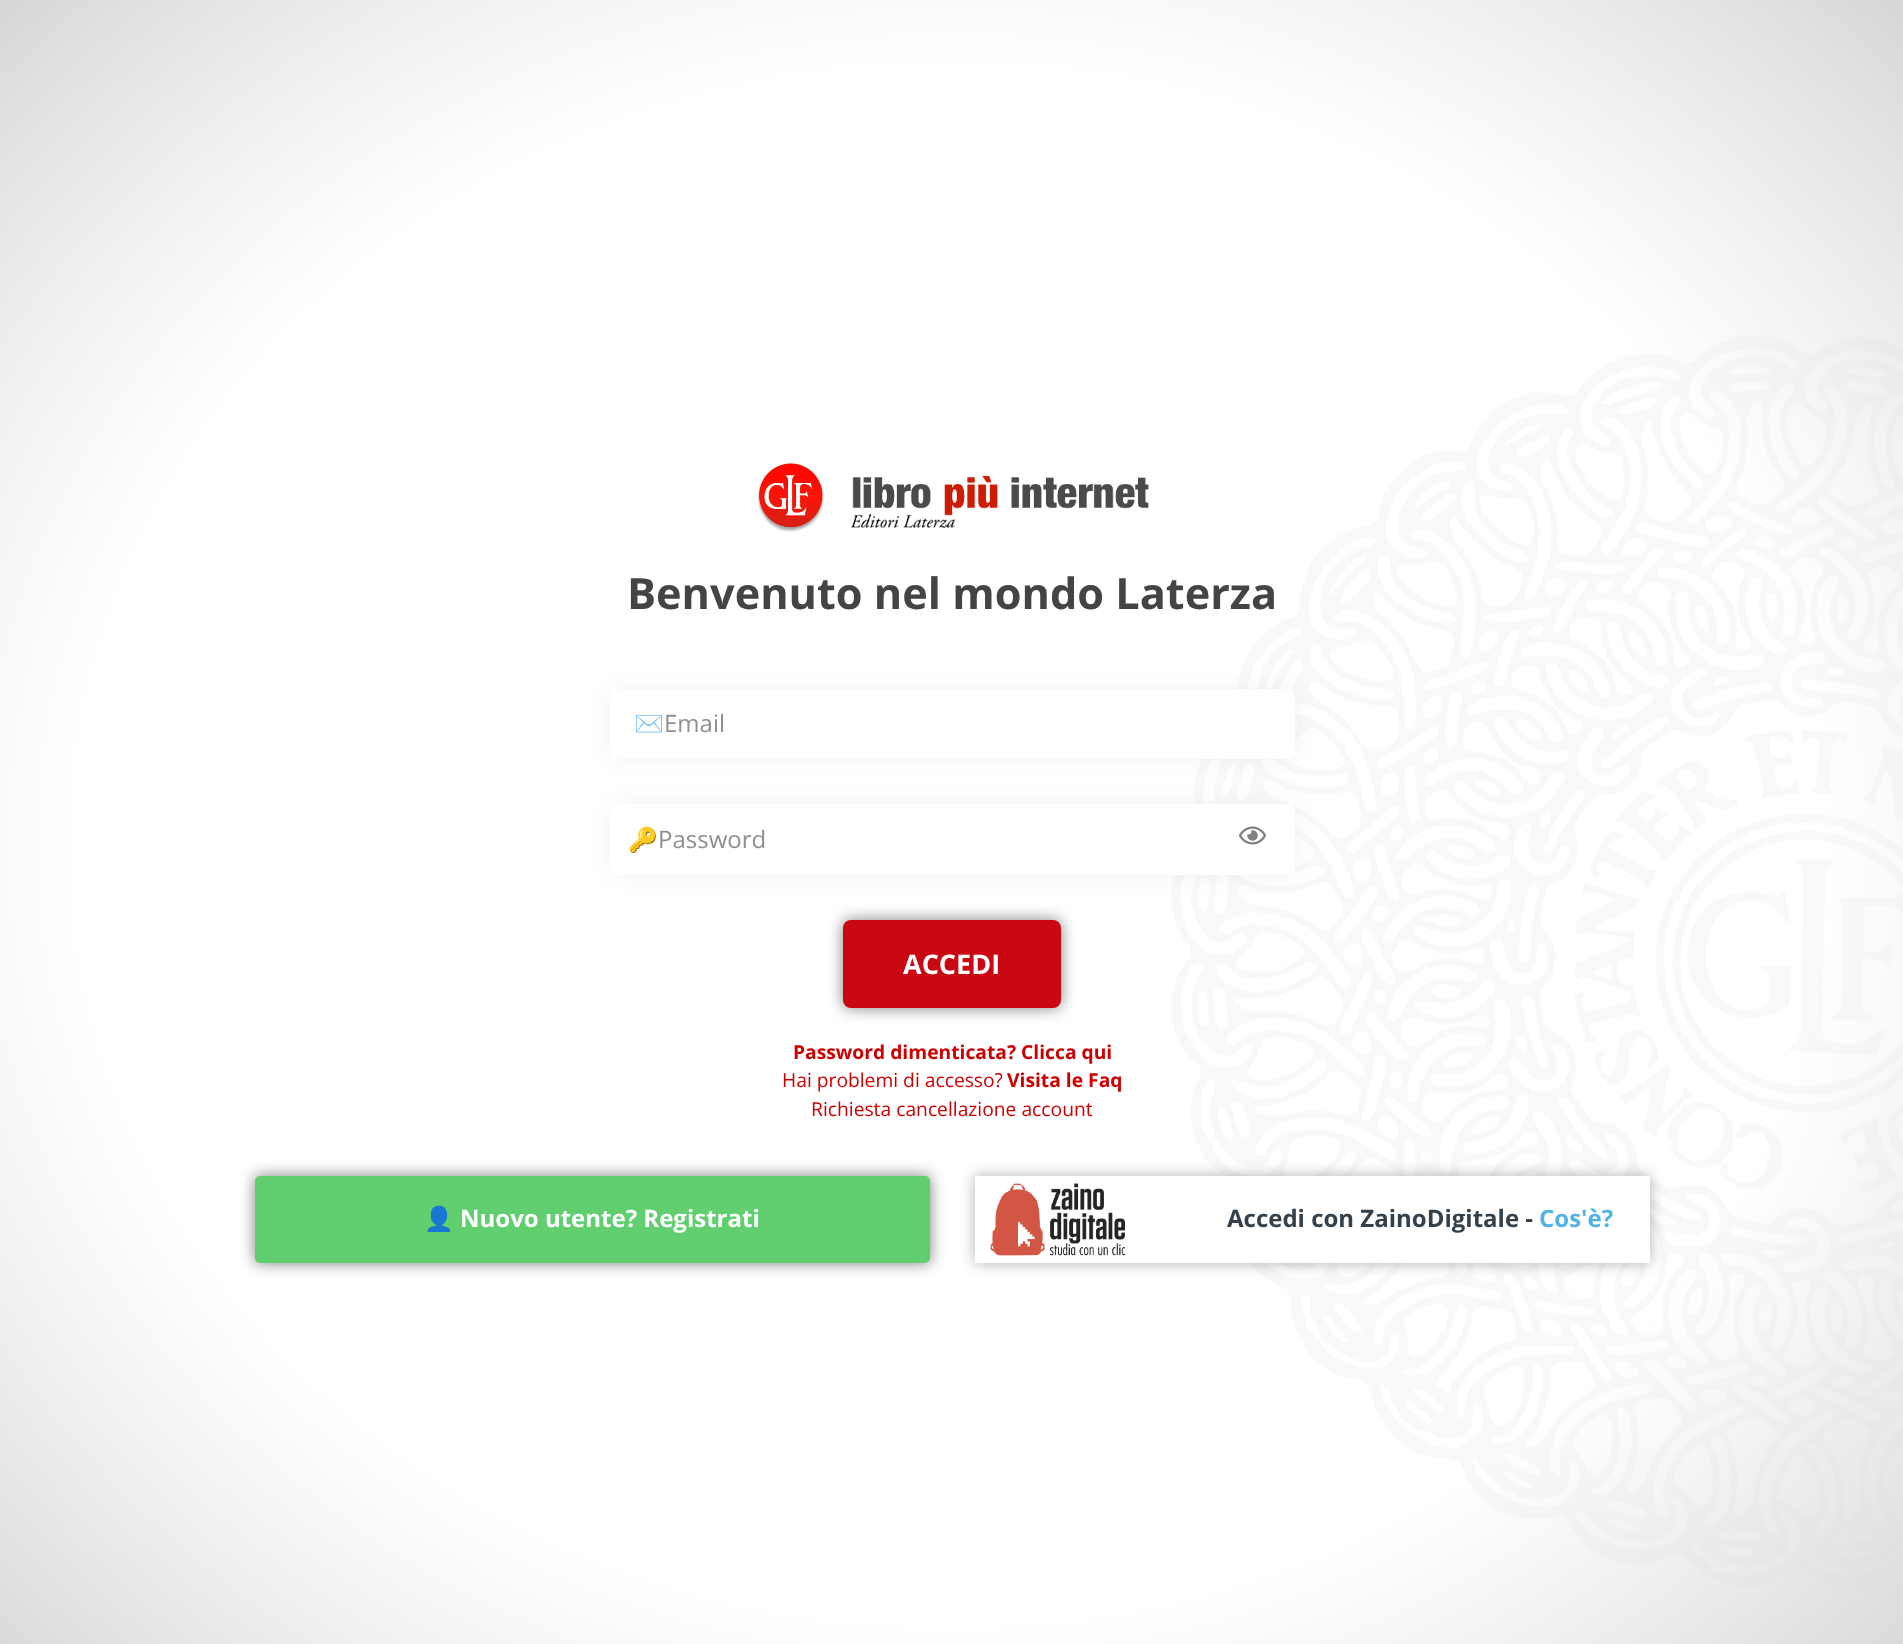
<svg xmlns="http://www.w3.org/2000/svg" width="1903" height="1644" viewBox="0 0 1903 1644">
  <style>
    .t1 { font: bold 43.25px Open Sans; fill: #444; }
    .t2 { font: 24px Noto Color Emoji; fill: #8f8f8f; }
    .t3 { font: 24px Open Sans; fill: #8f8f8f; }
    .t4 { font: bold 27px Open Sans; fill: #fff; }
    .t5 { font: bold 19.25px Open Sans; fill: #c00; }
    .t6 { font: 19.25px Open Sans; fill: #c00; }
    .t7 { font: bold 24px Noto Color Emoji; fill: #fff; }
    .t8 { font: bold 24px Open Sans; fill: #fff; }
    .t9 { font: bold 24px Open Sans; fill: #34414b; }
    .t10 { font: bold 24px Open Sans; fill: #53b2e4; }
  </style>
  <defs>
    <radialGradient id="g1" gradientUnits="userSpaceOnUse" cx="0" cy="0" r="1" gradientTransform="matrix(1346 0 0 1194 952 845)"><stop offset="0.65" stop-color="#fff" stop-opacity="0.77"/><stop offset="1" stop-color="#d6d6d6"/></radialGradient>
    <clipPath id="clip1"><rect x="635" y="707" width="636" height="33"/></clipPath>
    <clipPath id="clip2"><rect x="629" y="822" width="612" height="33"/></clipPath>
  </defs>
  <rect width="100%" height="100%" fill="#fff"/>
  <image x="1170" y="334" width="733" height="1256" href="images/1.png"/>
  <rect x="0" y="0" width="1903" height="1644" fill="url(#g1)"/>
  <image x="757" y="463" width="67" height="69" href="images/2.png"/>
  <image x="851" y="476" width="298" height="52" href="images/3.png"/>
  <text x="627" y="609" class="t1">Benvenuto nel mondo Laterza</text>
  <rect x="611" y="689" width="684" height="70" rx="6" fill="#0000000d" filter="blur(11px)"/>
  <rect x="611" y="689" width="684" height="70" rx="6" fill="#fff"/>
  <g clip-path="url(#clip1)">
    <text x="634" y="732" class="t2">✉️</text>
  </g>
  <text x="664" y="732" class="t3">Email</text>
  <rect x="611" y="804" width="684" height="71" rx="6" fill="#0000000d" filter="blur(11px)"/>
  <rect x="611" y="804" width="684" height="71" rx="6" fill="#fff"/>
  <g clip-path="url(#clip2)">
    <text x="628" y="848" class="t2">🔑</text>
  </g>
  <text x="658" y="848" class="t3">Password</text>
  <image x="1239" y="826" width="27" height="19" href="images/4.png"/>
  <rect x="843" y="920" width="218" height="88" rx="8" fill="#00000080" filter="blur(7.5px)"/>
  <rect x="843" y="920" width="218" height="88" rx="8" fill="#ca0813"/>
  <text x="903" y="974" class="t4">ACCEDI</text>
  <text x="793" y="1059" class="t5">Password dimenticata? Clicca qui</text>
  <text x="782" y="1087" class="t6">Hai problemi di accesso?</text>
  <text x="1007" y="1087" class="t5">Visita le Faq</text>
  <text x="811" y="1116" class="t6">Richiesta cancellazione account</text>
  <rect x="255" y="1176" width="675" height="87" fill="#00000080" filter="blur(7.5px)"/>
  <rect x="255" y="1176" width="675" height="87" rx="5" fill="#61ce70"/>
  <text x="424" y="1227" class="t7">👤</text>
  <text x="460" y="1227" class="t8">Nuovo utente? Registrati</text>
  <rect x="975" y="1176" width="675" height="87" fill="#0000004f" filter="blur(7.5px)"/>
  <rect x="975" y="1176" width="675" height="87" fill="#fff"/>
  <image x="990" y="1183" width="135" height="73" href="images/5.png"/>
  <text x="1227" y="1227" class="t9">Accedi con ZainoDigitale -</text>
  <text x="1539" y="1227" class="t10">Cos'è?</text>
</svg>
